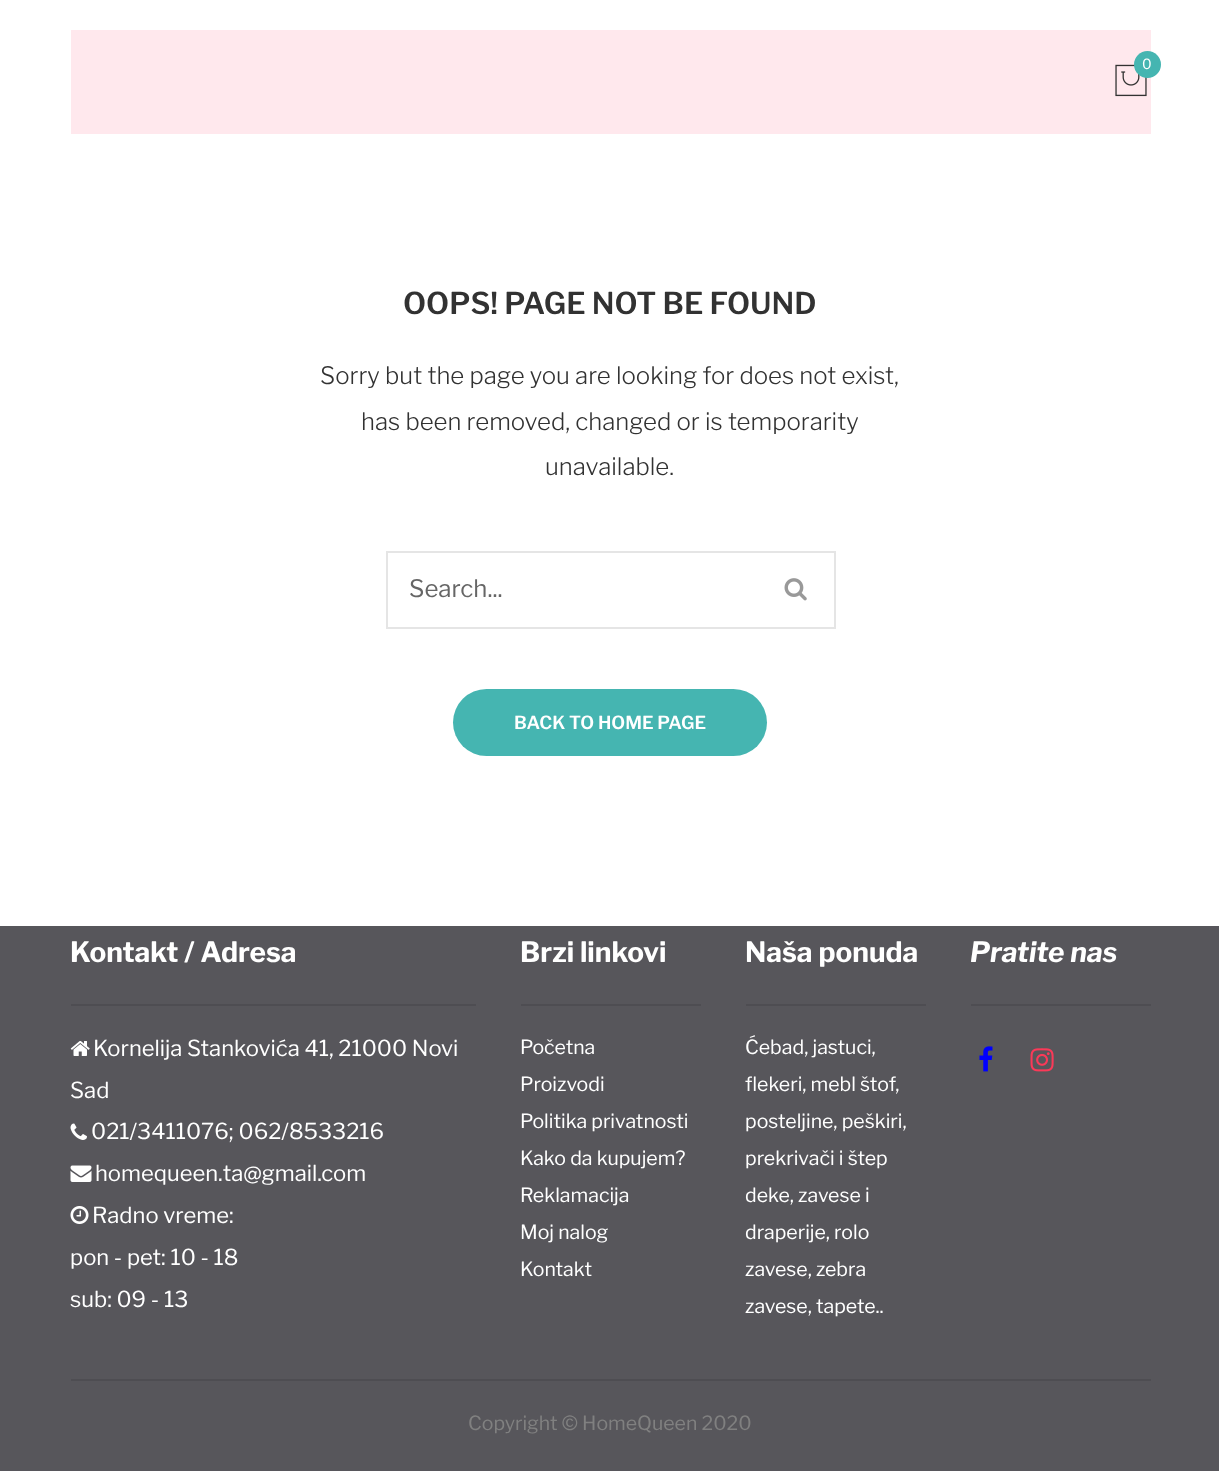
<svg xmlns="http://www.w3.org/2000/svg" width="1219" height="1471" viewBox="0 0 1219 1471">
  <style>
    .t1 { font: 14px Libre Franklin; fill: #fff; }
    .t2 { font: 600 30px Libre Franklin; fill: #323232; }
    .t3 { font: 300 24px Libre Franklin; fill: #323232; }
    .t4 { font: 24px Libre Franklin; fill: #666; }
    .t5 { font: 600 18px Libre Franklin; fill: #fff; }
    .t6 { font: bold 28px Libre Franklin; fill: #fff; }
    .t7 { font: 22px Libre Franklin; fill: #fff; }
    .t8 { font: 19.5px Libre Franklin; fill: #fff; }
    .t9 { font: italic bold 28px Libre Franklin; fill: #fff; }
    .t10 { font: 19.5px Libre Franklin; fill: #808080; }
  </style>
  <rect width="100%" height="100%" fill="#fff"/>
  <rect x="71" y="30" width="1080" height="104" fill="#ffe8ed"/>
  <image x="1115" y="64" width="32" height="33" href="images/1.png"/>
  <circle cx="1147.5" cy="64.5" r="13.5" fill="#45b5b1"/>
  <text x="1142" y="69" class="t1">0</text>
  <text x="403" y="314" class="t2">OOPS! PAGE NOT BE FOUND</text>
  <text x="320" y="384" class="t3">Sorry but the page you are looking for does not exist,</text>
  <text x="361" y="430" class="t3">has been removed, changed or is temporarity</text>
  <text x="545" y="475" class="t3">unavailable.</text>
  <rect x="387" y="552" width="448" height="76" fill="none" stroke="#e5e5e5" stroke-width="2"/>
  <text x="409" y="597" class="t4">Search...</text>
  <image x="784" y="578" width="23" height="23" href="images/2.png"/>
  <rect x="453" y="689" width="314" height="67" rx="33.5" fill="#45b5b1"/>
  <text x="514" y="729" class="t5">BACK TO HOME PAGE</text>
  <rect x="0" y="926" width="1219" height="545" fill="#57565b"/>
  <text x="70" y="962" class="t6">Kontakt / Adresa</text>
  <rect x="71" y="1004" width="405" height="2" fill="#4e4d52"/>
  <image x="70" y="1041" width="20" height="15" href="images/3.png"/>
  <text x="93" y="1056" class="t7">Kornelija Stankovića 41, 21000 Novi</text>
  <text x="70" y="1098" class="t7">Sad</text>
  <image x="70" y="1123" width="17" height="17" href="images/4.png"/>
  <text x="91" y="1139" class="t7">021/3411076; 062/8533216</text>
  <image x="70" y="1165" width="22" height="17" href="images/5.png"/>
  <text x="95" y="1181" class="t7">homequeen.ta@gmail.com</text>
  <image x="70" y="1206" width="19" height="18" href="images/6.png"/>
  <text x="92" y="1223" class="t7">Radno vreme:</text>
  <text x="70" y="1265" class="t7">pon - pet: 10 - 18</text>
  <text x="70" y="1307" class="t7">sub: 09 - 13</text>
  <text x="520" y="962" class="t6">Brzi linkovi</text>
  <rect x="521" y="1004" width="180" height="2" fill="#4e4d52"/>
  <text x="520" y="1054" class="t8">Početna</text>
  <text x="520" y="1091" class="t8">Proizvodi</text>
  <text x="520" y="1128" class="t8">Politika privatnosti</text>
  <text x="520" y="1165" class="t8">Kako da kupujem?</text>
  <text x="520" y="1202" class="t8">Reklamacija</text>
  <text x="520" y="1239" class="t8">Moj nalog</text>
  <text x="520" y="1276" class="t8">Kontakt</text>
  <text x="745" y="962" class="t6">Naša ponuda</text>
  <rect x="746" y="1004" width="180" height="2" fill="#4e4d52"/>
  <text x="745" y="1054" class="t8">Ćebad, jastuci,</text>
  <text x="745" y="1091" class="t8">flekeri, mebl štof,</text>
  <text x="745" y="1128" class="t8">posteljine, peškiri,</text>
  <text x="745" y="1165" class="t8">prekrivači i štep</text>
  <text x="745" y="1202" class="t8">deke, zavese i</text>
  <text x="745" y="1239" class="t8">draperije, rolo</text>
  <text x="745" y="1276" class="t8">zavese, zebra</text>
  <text x="745" y="1313" class="t8">zavese, tapete..</text>
  <text x="970" y="962" class="t9">Pratite nas</text>
  <rect x="971" y="1004" width="180" height="2" fill="#4e4d52"/>
  <image x="979" y="1046" width="14" height="26" href="images/7.png"/>
  <image x="1030" y="1048" width="24" height="24" href="images/8.png"/>
  <rect x="71" y="1379" width="1080" height="2" fill="#4e4d52"/>
  <text x="468" y="1430" class="t10">Copyright © HomeQueen 2020</text>
</svg>
